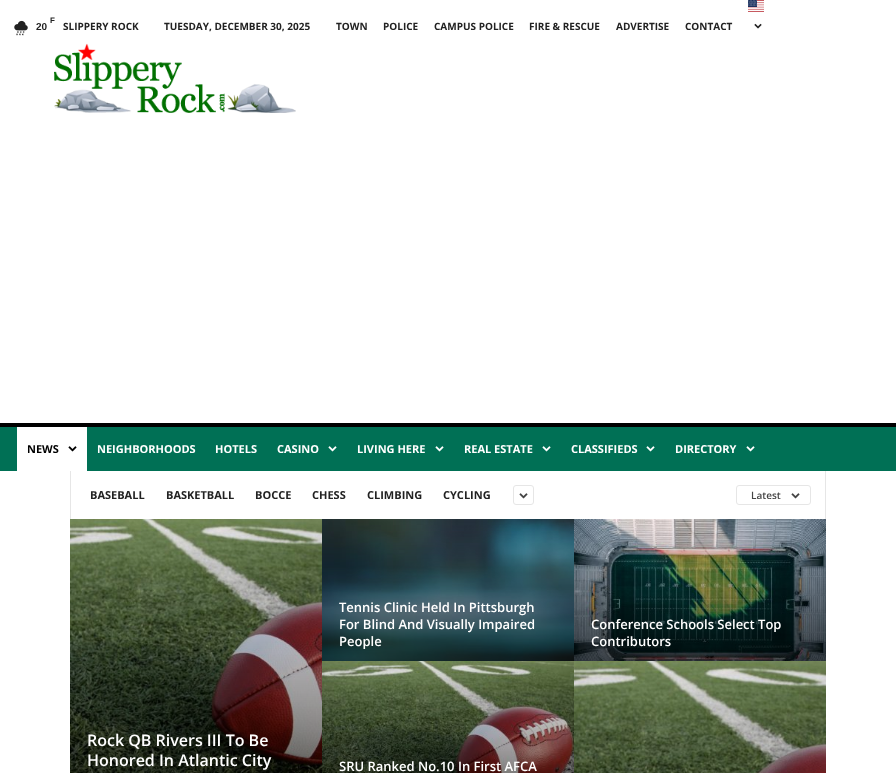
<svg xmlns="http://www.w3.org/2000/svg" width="896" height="773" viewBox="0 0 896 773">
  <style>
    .t1 { font: bold 8px Liberation Sans; fill: #222; }
    .t2 { font: bold 10px Liberation Sans; fill: #222; }
    .t3 { font: bold 10px Open Sans; fill: #222; }
    .t4 { font: bold 11px Open Sans; fill: #000; }
    .t5 { font: bold 11px Open Sans; fill: #fff; }
    .t6 { font: bold 11px Open Sans; fill: #222; }
    .t7 { font: 600 10px Open Sans; fill: #444; }
    .t8 { font: 600 16px Open Sans; fill: #fff; }
    .t9 { font: 600 13px Open Sans; fill: #fff; }
  </style>
  <rect width="100%" height="100%" fill="#fff"/>
  <image x="14" y="20" width="14" height="16" href="images/1.png"/>
  <text x="50" y="23" class="t1">F</text>
  <text x="36" y="30" class="t2">20</text>
  <text x="63" y="30" class="t3">SLIPPERY ROCK</text>
  <text x="164" y="30" class="t3">TUESDAY, DECEMBER 30, 2025</text>
  <text x="336" y="30" class="t3">TOWN</text>
  <text x="383" y="30" class="t3">POLICE</text>
  <text x="434" y="30" class="t3">CAMPUS POLICE</text>
  <text x="529" y="30" class="t3">FIRE &amp; RESCUE</text>
  <text x="616" y="30" class="t3">ADVERTISE</text>
  <text x="685" y="30" class="t3">CONTACT</text>
  <image x="748" y="0" width="16" height="12" href="images/2.png"/>
  <image x="754" y="23" width="8" height="6" href="images/3.png"/>
  <image x="54" y="43" width="242" height="70" href="images/4.png"/>
  <rect x="0" y="427" width="896" height="44" fill="#007055"/>
  <rect x="0" y="423" width="896" height="4" fill="#000"/>
  <rect x="17" y="427" width="70" height="44" fill="#fff"/>
  <text x="27" y="453" class="t4">NEWS</text>
  <image x="68" y="446" width="9" height="6" href="images/5.png"/>
  <text x="97" y="453" class="t5">NEIGHBORHOODS</text>
  <text x="215" y="453" class="t5">HOTELS</text>
  <text x="277" y="453" class="t5">CASINO</text>
  <image x="328" y="446" width="9" height="6" href="images/6.png"/>
  <text x="357" y="453" class="t5">LIVING HERE</text>
  <image x="435" y="446" width="9" height="6" href="images/6.png"/>
  <text x="464" y="453" class="t5">REAL ESTATE</text>
  <image x="542" y="446" width="9" height="6" href="images/6.png"/>
  <text x="571" y="453" class="t5">CLASSIFIEDS</text>
  <image x="646" y="446" width="9" height="6" href="images/6.png"/>
  <text x="675" y="453" class="t5">DIRECTORY</text>
  <image x="746" y="446" width="9" height="6" href="images/6.png"/>
  <rect x="70" y="471" width="1" height="48" fill="#e6e6e6"/>
  <text x="90" y="499" class="t6">BASEBALL</text>
  <text x="166" y="499" class="t6">BASKETBALL</text>
  <text x="255" y="499" class="t6">BOCCE</text>
  <text x="312" y="499" class="t6">CHESS</text>
  <text x="367" y="499" class="t6">CLIMBING</text>
  <text x="443" y="499" class="t6">CYCLING</text>
  <rect x="513.5" y="485.5" width="20" height="19" rx="2.5" fill="none" stroke="#e6e6e6"/>
  <image x="519" y="493" width="9" height="6" href="images/7.png"/>
  <rect x="736.5" y="485.5" width="74" height="19" rx="2.5" fill="none" stroke="#e6e6e6"/>
  <text x="751" y="499" class="t7">Latest</text>
  <image x="791" y="493" width="9" height="6" href="images/7.png"/>
  <rect x="825" y="471" width="1" height="48" fill="#e6e6e6"/>
  <image x="70" y="519" width="252" height="254" href="images/8.png"/>
  <text x="87" y="746" class="t8">Rock QB Rivers III To Be</text>
  <text x="87" y="766" class="t8">Honored In Atlantic City</text>
  <image x="322" y="519" width="252" height="142" href="images/9.png"/>
  <text x="339" y="612" class="t9">Tennis Clinic Held In Pittsburgh</text>
  <text x="339" y="629" class="t9">For Blind And Visually Impaired</text>
  <text x="339" y="646" class="t9">People</text>
  <image x="322" y="661" width="252" height="112" href="images/10.png"/>
  <text x="339" y="771" class="t9">SRU Ranked No.10 In First AFCA</text>
  <image x="574" y="519" width="252" height="142" href="images/11.png"/>
  <text x="591" y="629" class="t9">Conference Schools Select Top</text>
  <text x="591" y="646" class="t9">Contributors</text>
  <image x="574" y="661" width="252" height="112" href="images/12.png"/>
</svg>
